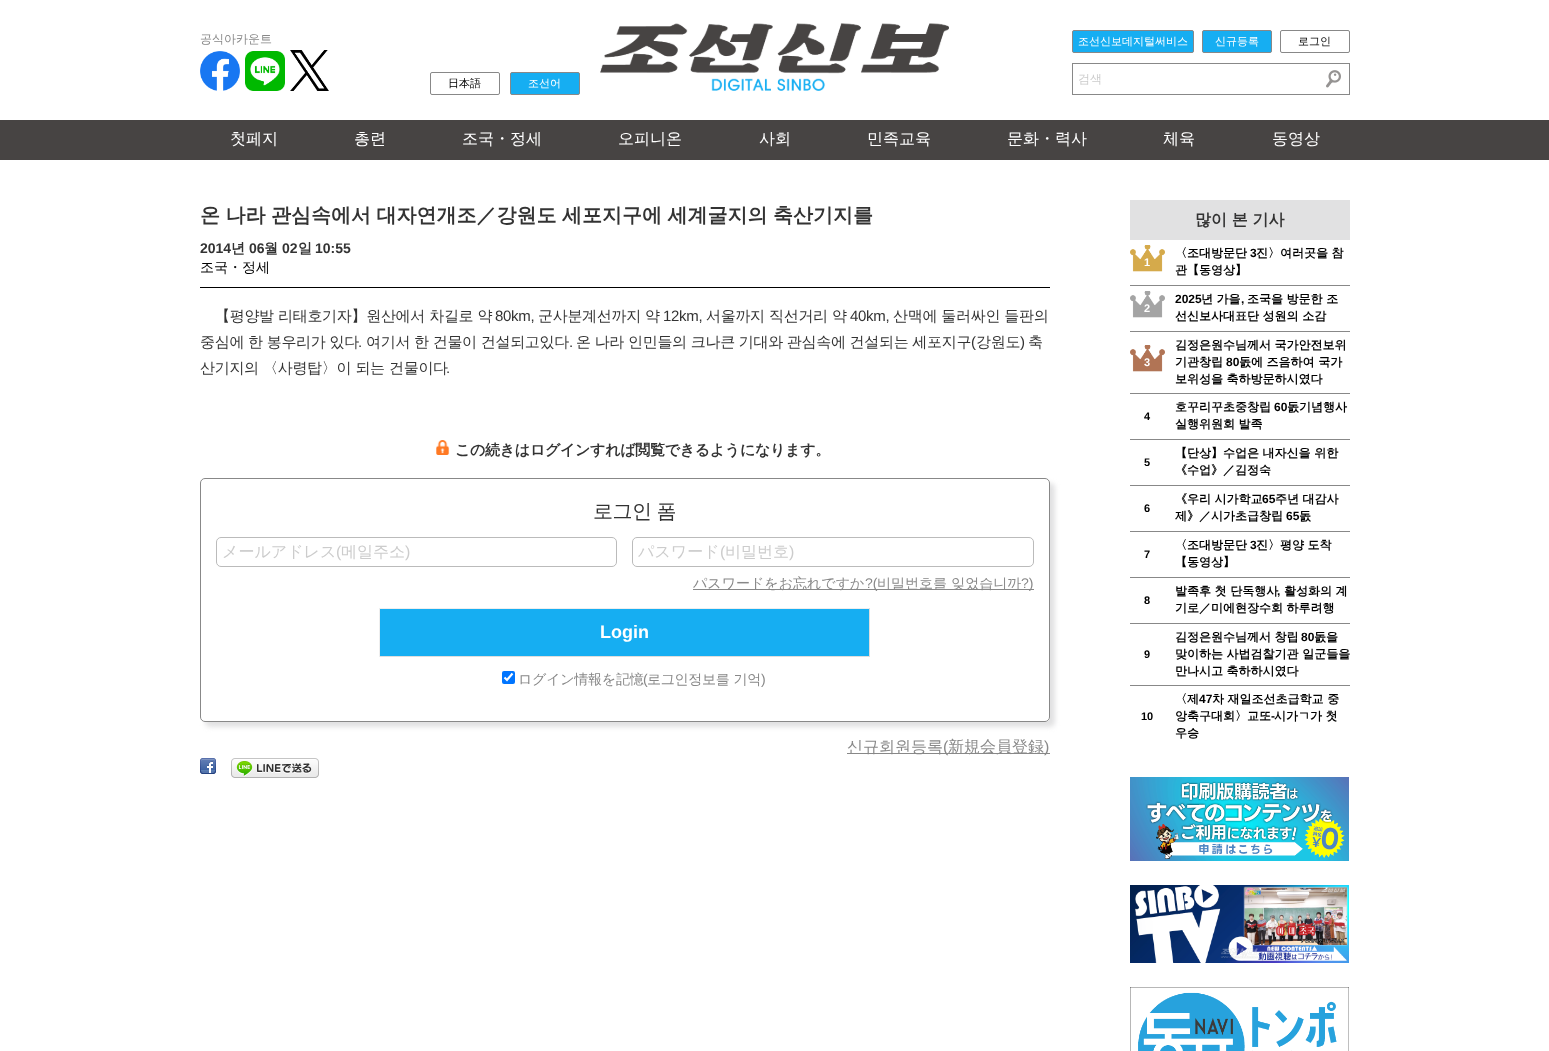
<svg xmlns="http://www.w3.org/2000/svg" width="1549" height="1051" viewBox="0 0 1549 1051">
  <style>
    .t1 { font: 500 12px WenQuanYi Zen Hei; fill: #888; }
    .t2 { font: 500 11px WenQuanYi Zen Hei; fill: #000; }
    .t3 { font: 500 11px WenQuanYi Zen Hei; fill: #fff; }
    .t4 { font: 500 12px WenQuanYi Zen Hei; fill: #ccc; }
    .t5 { font: 500 16px WenQuanYi Zen Hei; fill: #fff; }
    .t6 { font: bold 20px WenQuanYi Zen Hei; fill: #333; }
    .t7 { font: bold 14px Liberation Sans; fill: #333; }
    .t8 { font: bold 14px WenQuanYi Zen Hei; fill: #333; }
    .t9 { font: 500 14px WenQuanYi Zen Hei; fill: #000; }
    .t10 { font: 500 15px WenQuanYi Zen Hei; letter-spacing: -0.3px; fill: #333; }
    .t11 { font: 15px Liberation Sans; letter-spacing: -0.3px; fill: #333; }
    .t12 { font: bold 15px WenQuanYi Zen Hei; letter-spacing: -0.3px; fill: #333; }
    .t13 { font: 500 20px WenQuanYi Zen Hei; letter-spacing: -0.5px; fill: #333; }
    .t14 { font: 500 16px WenQuanYi Zen Hei; fill: #ccc; }
    .t15 { font: 16px Liberation Sans; fill: #ccc; }
    .t16 { font: 500 14px WenQuanYi Zen Hei; fill: #888; }
    .t17 { font: 14px Liberation Sans; fill: #888; }
    .t18 { font: bold 18px Liberation Sans; fill: #fff; }
    .t19 { font: 500 14px WenQuanYi Zen Hei; letter-spacing: -0.25px; fill: #888; }
    .t20 { font: 14px Liberation Sans; letter-spacing: -0.25px; fill: #888; }
    .t21 { font: 500 16px WenQuanYi Zen Hei; fill: #888; }
    .t22 { font: 16px Liberation Sans; fill: #888; }
    .t23 { font: bold 16px WenQuanYi Zen Hei; fill: #333; }
    .t24 { font: bold 11px Liberation Sans; fill: #fff; }
    .t25 { font: bold 12px WenQuanYi Zen Hei; fill: #000; }
    .t26 { font: bold 12px Liberation Sans; fill: #000; }
    .t27 { font: bold 11px Liberation Sans; fill: #000; }
  </style>
  <defs>
    <clipPath id="clip1"><path d="M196 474H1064V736H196ZM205 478H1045C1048 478 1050 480 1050 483V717C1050 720 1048 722 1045 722H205C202 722 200 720 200 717V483C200 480 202 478 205 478Z" clip-rule="evenodd"/></clipPath>
  </defs>
  <rect width="100%" height="100%" fill="#fff"/>
  <text x="200" y="43" class="t1">공식아카운트</text>
  <image x="200" y="51" width="40" height="40" href="images/1.png"/>
  <image x="245" y="51" width="40" height="40" href="images/2.png"/>
  <image x="290" y="50" width="39" height="41" href="images/3.png"/>
  <rect x="430.5" y="72.5" width="69" height="22" rx="1.5" fill="none" stroke="#888"/>
  <text x="448" y="87" class="t2">日本語</text>
  <rect x="510.5" y="72.5" width="69" height="22" rx="1.5" fill="#16aef2" stroke="#888"/>
  <text x="528" y="87" class="t3">조선어</text>
  <image x="600" y="23" width="349" height="68" href="images/4.png"/>
  <rect x="1072.5" y="30.5" width="121" height="22" rx="1.5" fill="#16aef2" stroke="#888"/>
  <text x="1078" y="45" class="t3">조선신보데지털써비스</text>
  <rect x="1202.5" y="30.5" width="69" height="22" rx="1.5" fill="#16aef2" stroke="#888"/>
  <text x="1215" y="45" class="t3">신규등록</text>
  <rect x="1280.5" y="30.5" width="69" height="22" rx="1.5" fill="none" stroke="#888"/>
  <text x="1298" y="45" class="t2">로그인</text>
  <rect x="1072.5" y="63.5" width="277" height="31" fill="none" stroke="#888"/>
  <text x="1078" y="83" class="t4">검색</text>
  <image x="1326" y="70" width="15" height="18" href="images/5.png"/>
  <rect x="0" y="120" width="1549" height="40" fill="#474443"/>
  <text x="230" y="144" class="t5">첫페지</text>
  <text x="354" y="144" class="t5">총련</text>
  <text x="462" y="144" class="t5">조국・정세</text>
  <text x="618" y="144" class="t5">오피니온</text>
  <text x="759" y="144" class="t5">사회</text>
  <text x="867" y="144" class="t5">민족교육</text>
  <text x="1007" y="144" class="t5">문화・력사</text>
  <text x="1163" y="144" class="t5">체육</text>
  <text x="1272" y="144" class="t5">동영상</text>
  <text x="200" y="222" word-spacing="-0.5" class="t6">온 나라 관심속에서 대자연개조／강원도 세포지구에 세계굴지의 축산기지를</text>
  <text x="200" y="253" class="t7">2014</text>
  <text x="231" y="253" class="t8">년</text>
  <text x="249" y="253" class="t7">06</text>
  <text x="264" y="253" class="t8">월</text>
  <text x="282" y="253" class="t7">02</text>
  <text x="298" y="253" class="t8">일</text>
  <text x="315" y="253" class="t7">10:55</text>
  <rect x="200" y="287" width="850" height="1" fill="#000"/>
  <text x="200" y="272" class="t9">조국・정세</text>
  <text x="215" y="321" class="t10">【평양발 리태호기자】원산에서 차길로 약</text>
  <text x="495" y="321" class="t11">80km,</text>
  <text x="538" y="321" class="t10">군사분계선까지 약</text>
  <text x="663" y="321" class="t11">12km,</text>
  <text x="706" y="321" class="t10">서울까지 직선거리 약</text>
  <text x="850" y="321" class="t11">40km,</text>
  <text x="893" y="321" class="t10">산맥에 둘러싸인 들판의</text>
  <text x="200" y="347" word-spacing="-0.25" class="t10">중심에 한 봉우리가 있다</text>
  <text x="358" y="347" class="t11">.</text>
  <text x="366" y="347" word-spacing="-0.25" class="t10">여기서 한 건물이 건설되고있다</text>
  <text x="569" y="347" class="t11">.</text>
  <text x="576" y="347" word-spacing="-0.25" class="t10">온 나라 인민들의 크나큰 기대와 관심속에 건설되는 세포지구</text>
  <text x="971" y="347" class="t11">(</text>
  <text x="976" y="347" class="t10">강원도</text>
  <text x="1020" y="347" class="t11">)</text>
  <text x="1028" y="347" class="t10">축</text>
  <text x="200" y="373" class="t10">산기지의 〈사령탑〉이 되는 건물이다</text>
  <text x="446" y="373" class="t11">.</text>
  <image x="436" y="440" width="14" height="15" href="images/6.png"/>
  <text x="455" y="455" class="t12">この続きはログインすれば閲覧できるようになります。</text>
  <g clip-path="url(#clip1)">
    <rect x="205" y="483" width="850" height="244" rx="5" fill="#e1e1e2" filter="blur(2.5px)"/>
  </g>
  <rect x="200.5" y="478.5" width="849" height="243" rx="4.5" fill="none" stroke="#888"/>
  <text x="593" y="518" word-spacing="-0.5" class="t13">로그인 폼</text>
  <rect x="216.5" y="537.5" width="400" height="29" rx="4.5" fill="none" stroke="#bbb"/>
  <text x="222" y="557" class="t14">メールアドレス</text>
  <text x="336" y="557" class="t15">(</text>
  <text x="341" y="557" class="t14">메일주소</text>
  <text x="405" y="557" class="t15">)</text>
  <rect x="632.5" y="537.5" width="401" height="29" rx="4.5" fill="none" stroke="#bbb"/>
  <text x="638" y="557" class="t14">パスワード</text>
  <text x="720" y="557" class="t15">(</text>
  <text x="725" y="557" class="t14">비밀번호</text>
  <text x="789" y="557" class="t15">)</text>
  <rect x="693" y="589" width="341" height="1" fill="#888"/>
  <text x="693" y="588" class="t16">パスワードをお忘れですか</text>
  <text x="865" y="588" class="t17">?(</text>
  <text x="877" y="588" class="t16">비밀번호를 잊었습니까</text>
  <text x="1021" y="588" class="t17">?)</text>
  <rect x="380" y="609" width="489" height="47" fill="#16aef2"/>
  <rect x="379" y="608" width="491" height="1" fill="#eee"/>
  <rect x="869" y="608" width="1" height="49" fill="#dedede"/>
  <rect x="379" y="656" width="491" height="1" fill="#dedede"/>
  <rect x="379" y="608" width="1" height="49" fill="#eee"/>
  <text x="600" y="638" class="t18">Login</text>
  <rect x="502" y="671" width="13" height="13" rx="2" fill="#0075ff"/>
  <path d="M504.5 677.5L507 680L512.5 673.5" fill="none" stroke="#fff" stroke-width="2.1"/>
  <text x="518" y="684" class="t19">ログイン情報を記憶</text>
  <text x="643" y="684" class="t20">(</text>
  <text x="647" y="684" class="t19">로그인정보를 기억</text>
  <text x="761" y="684" class="t20">)</text>
  <rect x="847" y="753" width="203" height="1" fill="#888"/>
  <text x="847" y="752" class="t21">신규회원등록</text>
  <text x="943" y="752" class="t22">(</text>
  <text x="948" y="752" class="t21">新規会員登録</text>
  <text x="1044" y="752" class="t22">)</text>
  <image x="200" y="758" width="16" height="16" href="images/7.png"/>
  <image x="231" y="758" width="88" height="20" href="images/8.png"/>
  <rect x="1130" y="200" width="220" height="40" fill="#e1e1e2"/>
  <text x="1195" y="225" class="t23">많이 본 기사</text>
  <rect x="1130" y="285" width="220" height="1" fill="#888"/>
  <image x="1130" y="245" width="35" height="27" href="images/9.png"/>
  <text x="1144" y="266" class="t24">1</text>
  <text x="1175" y="257" class="t25">〈조대방문단</text>
  <text x="1250" y="257" class="t26">3</text>
  <text x="1256" y="257" class="t25">진〉여러곳을 참</text>
  <text x="1175" y="274" class="t25">관【동영상】</text>
  <rect x="1130" y="331" width="220" height="1" fill="#888"/>
  <image x="1130" y="291" width="35" height="27" href="images/10.png"/>
  <text x="1144" y="312" class="t24">2</text>
  <text x="1175" y="303" class="t26">2025</text>
  <text x="1201" y="303" class="t25">년 가을</text>
  <text x="1241" y="303" class="t26">,</text>
  <text x="1247" y="303" class="t25">조국을 방문한 조</text>
  <text x="1175" y="320" class="t25">선신보사대표단 성원의 소감</text>
  <rect x="1130" y="393" width="220" height="1" fill="#888"/>
  <image x="1130" y="345" width="35" height="27" href="images/11.png"/>
  <text x="1144" y="366" class="t24">3</text>
  <text x="1175" y="349" class="t25">김정은원수님께서 국가안전보위</text>
  <text x="1175" y="366" class="t25">기관창립</text>
  <text x="1226" y="366" class="t26">80</text>
  <text x="1239" y="366" class="t25">돐에 즈음하여 국가</text>
  <text x="1175" y="383" class="t25">보위성을 축하방문하시였다</text>
  <rect x="1130" y="439" width="220" height="1" fill="#888"/>
  <text x="1144" y="420" class="t27">4</text>
  <text x="1175" y="411" class="t25">호꾸리꾸초중창립</text>
  <text x="1274" y="411" class="t26">60</text>
  <text x="1287" y="411" class="t25">돐기념행사</text>
  <text x="1175" y="428" class="t25">실행위원회 발족</text>
  <rect x="1130" y="485" width="220" height="1" fill="#888"/>
  <text x="1144" y="466" class="t27">5</text>
  <text x="1175" y="457" class="t25">【단상】수업은 내자신을 위한</text>
  <text x="1175" y="474" class="t25">《수업》／김정숙</text>
  <rect x="1130" y="531" width="220" height="1" fill="#888"/>
  <text x="1144" y="512" class="t27">6</text>
  <text x="1175" y="503" class="t25">《우리 시가학교</text>
  <text x="1262" y="503" class="t26">65</text>
  <text x="1275" y="503" class="t25">주년 대감사</text>
  <text x="1175" y="520" class="t25">제》／시가초급창립</text>
  <text x="1286" y="520" class="t26">65</text>
  <text x="1299" y="520" class="t25">돐</text>
  <rect x="1130" y="577" width="220" height="1" fill="#888"/>
  <text x="1144" y="558" class="t27">7</text>
  <text x="1175" y="549" class="t25">〈조대방문단</text>
  <text x="1250" y="549" class="t26">3</text>
  <text x="1256" y="549" class="t25">진〉평양 도착</text>
  <text x="1175" y="566" class="t25">【동영상】</text>
  <rect x="1130" y="623" width="220" height="1" fill="#888"/>
  <text x="1144" y="604" class="t27">8</text>
  <text x="1175" y="595" class="t25">발족후 첫 단독행사</text>
  <text x="1277" y="595" class="t26">,</text>
  <text x="1284" y="595" class="t25">활성화의 계</text>
  <text x="1175" y="612" class="t25">기로／미에현장수회 하루려행</text>
  <rect x="1130" y="685" width="220" height="1" fill="#888"/>
  <text x="1144" y="658" class="t27">9</text>
  <text x="1175" y="641" class="t25">김정은원수님께서 창립</text>
  <text x="1301" y="641" class="t26">80</text>
  <text x="1314" y="641" class="t25">돐을</text>
  <text x="1175" y="658" class="t25">맞이하는 사법검찰기관 일군들을</text>
  <text x="1175" y="675" class="t25">만나시고 축하하시였다</text>
  <text x="1141" y="720" class="t27">10</text>
  <text x="1175" y="703" class="t25">〈제</text>
  <text x="1199" y="703" class="t26">47</text>
  <text x="1212" y="703" class="t25">차 재일조선초급학교 중</text>
  <text x="1175" y="720" class="t25">앙축구대회〉교또</text>
  <text x="1271" y="720" class="t26">-</text>
  <text x="1274" y="720" class="t25">시가ㄱ가 첫</text>
  <text x="1175" y="737" class="t25">우승</text>
  <image x="1130" y="777" width="219" height="84" href="images/12.png"/>
  <image x="1130" y="885" width="219" height="78" href="images/13.png"/>
  <image x="1130" y="987" width="219" height="64" href="images/14.png"/>
</svg>
